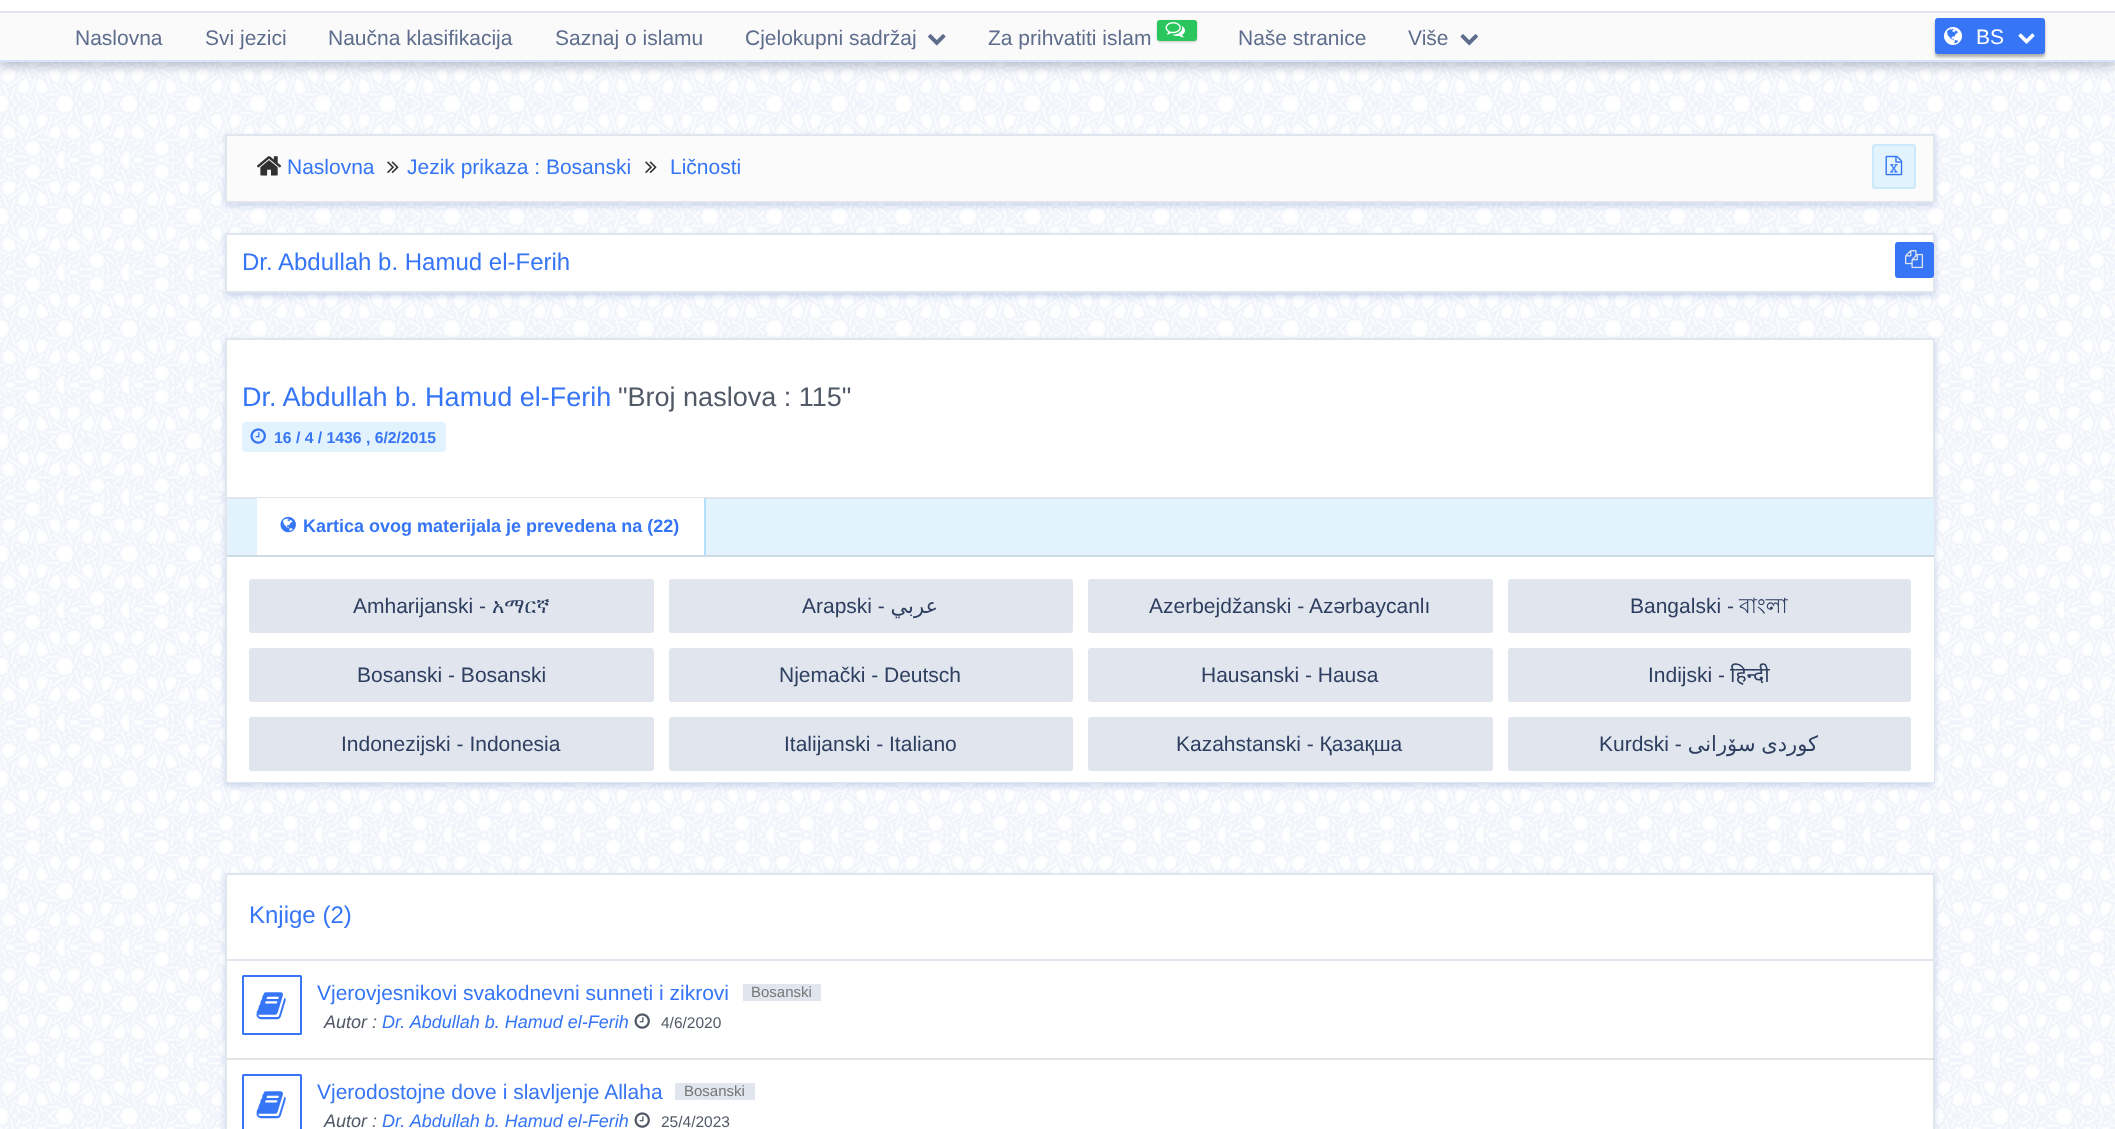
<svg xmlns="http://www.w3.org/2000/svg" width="2115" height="1129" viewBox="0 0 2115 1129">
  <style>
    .t1 { font: 21px Liberation Sans; fill: #5e6d8c; }
    .t2 { font: 21px Liberation Sans; fill: #fff; }
    .t3 { font: 21px Liberation Sans; fill: #3575f6; }
    .t4 { font: 24px Liberation Sans; fill: #3575f6; }
    .t5 { font: 27px Liberation Sans; fill: #3575f6; }
    .t6 { font: 27px Liberation Sans; fill: #515866; }
    .t7 { font: bold 15.75px Liberation Sans; fill: #3575f6; }
    .t8 { font: bold 18px Liberation Sans; fill: #3575f6; }
    .t9 { font: 21px Liberation Sans; fill: #2d3e5f; }
    .t10 { font: 21px FreeSerif; fill: #2d3e5f; }
    .t11 { font: 21px DejaVu Sans; direction: rtl; fill: #2d3e5f; }
    .t12 { font: 21px Lohit Bengali; fill: #2d3e5f; }
    .t13 { font: 21px Noto Sans; fill: #2d3e5f; }
    .t14 { font: 15px Liberation Sans; fill: #777; }
    .t15 { font: italic 18px Liberation Sans; fill: #515866; }
    .t16 { font: italic 18px Liberation Sans; fill: #3575f6; }
    .t17 { font: 15.5px Liberation Sans; fill: #515866; }
  </style>
  <rect width="100%" height="100%" fill="#fff"/>
  <image x="0" y="62" width="2115" height="1067" href="images/6.png"/>
  <rect x="0" y="-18" width="2115" height="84" fill="#2d3e5f52" filter="blur(6px)"/>
  <rect x="0" y="0" width="2115" height="11" fill="#fff"/>
  <rect x="0" y="60" width="2115" height="2" fill="#d7e3fd"/>
  <rect x="0" y="13" width="2115" height="47" fill="#fafafa"/>
  <rect x="0" y="11" width="2115" height="2" fill="#e0e5ee"/>
  <text x="75" y="45" class="t1">Naslovna</text>
  <text x="205" y="45" class="t1">Svi jezici</text>
  <text x="328" y="45" class="t1">Naučna klasifikacija</text>
  <text x="555" y="45" class="t1">Saznaj o islamu</text>
  <text x="745" y="45" class="t1">Cjelokupni sadržaj</text>
  <image x="928" y="34" width="18" height="12" href="images/1.png"/>
  <text x="988" y="45" class="t1">Za prihvatiti islam</text>
  <rect x="1157" y="21" width="40" height="21" rx="3" fill="#00000033" filter="blur(1px)"/>
  <rect x="1157" y="20" width="40" height="21" rx="3" fill="#2ac55d"/>
  <image x="1165" y="22" width="20" height="16" href="images/2.png"/>
  <text x="1238" y="45" class="t1">Naše stranice</text>
  <text x="1408" y="45" class="t1">Više</text>
  <image x="1460" y="34" width="18" height="12" href="images/3.png"/>
  <rect x="1935" y="21" width="110" height="36" rx="3" fill="#0000004d" filter="blur(1.5px)"/>
  <rect x="1935" y="18" width="110" height="36" rx="3" fill="#3575f6"/>
  <image x="1944" y="27" width="18" height="18" href="images/4.png"/>
  <text x="1976" y="44" class="t2">BS</text>
  <image x="2018" y="33" width="17" height="11" href="images/5.png"/>
  <rect x="225" y="137" width="1710" height="69" fill="#1d4fb333" filter="blur(3px)"/>
  <rect x="226" y="135" width="1708" height="67" fill="#fbfbfb" stroke="#e0e5ee" stroke-width="2"/>
  <image x="257" y="156" width="25" height="20" href="images/7.png"/>
  <text x="287" y="174" class="t3">Naslovna</text>
  <image x="387" y="161" width="12" height="12" href="images/8.png"/>
  <text x="407" y="174" class="t3">Jezik prikaza : Bosanski</text>
  <image x="645" y="161" width="12" height="12" href="images/8.png"/>
  <text x="670" y="174" class="t3">Ličnosti</text>
  <rect x="1873" y="145" width="42" height="43" rx="2" fill="#e3f3fd" stroke="#cbe9fb" stroke-width="2"/>
  <image x="1885" y="155" width="18" height="21" href="images/9.png"/>
  <rect x="225" y="236" width="1710" height="60" fill="#1d4fb333" filter="blur(3px)"/>
  <rect x="226" y="234" width="1708" height="58" fill="#fff" stroke="#e0e5ee" stroke-width="2"/>
  <text x="242" y="270" class="t4">Dr. Abdullah b. Hamud el-Ferih</text>
  <rect x="1896" y="243" width="37" height="34" rx="2" fill="#3575f6" stroke="#3575f6" stroke-width="2"/>
  <image x="1905" y="250" width="18" height="19" href="images/10.png"/>
  <rect x="225" y="341" width="1710" height="445" fill="#1d4fb333" filter="blur(3px)"/>
  <rect x="227" y="340" width="1706" height="157" fill="#fff"/>
  <rect x="226" y="339" width="1708" height="443" fill="none" stroke="#e0e5ee" stroke-width="2"/>
  <text x="242" y="406" class="t5">Dr. Abdullah b. Hamud el-Ferih</text>
  <text x="618" y="406" class="t6">"Broj naslova : 115"</text>
  <rect x="242" y="422" width="204" height="30" rx="4" fill="#e3f3fd"/>
  <image x="250" y="428" width="16" height="16" href="images/11.png"/>
  <text x="274" y="443" class="t7">16 / 4 / 1436 , 6/2/2015</text>
  <rect x="227" y="499" width="1707" height="56" fill="#e3f3fd"/>
  <rect x="227" y="497" width="1707" height="2" fill="#e0e5ee"/>
  <rect x="227" y="555" width="1707" height="2" fill="#ccdbe4"/>
  <rect x="257" y="498" width="447" height="57" fill="#fff"/>
  <rect x="704" y="498" width="2" height="57" fill="#b3dffa"/>
  <image x="280" y="516" width="16" height="17" href="images/12.png"/>
  <text x="303" y="532" class="t8">Kartica ovog materijala je prevedena na (22)</text>
  <rect x="227" y="557" width="1707" height="225" fill="#fff"/>
  <rect x="250" y="580" width="403" height="52" rx="2" fill="#e0e5ee" stroke="#e0e5ee" stroke-width="2"/>
  <text x="353" y="613" class="t9">Amharijanski -</text>
  <text x="492" y="613" class="t10">አማርኛ</text>
  <rect x="670" y="580" width="402" height="52" rx="2" fill="#e0e5ee" stroke="#e0e5ee" stroke-width="2"/>
  <text x="802" y="613" class="t9">Arapski -</text>
  <text x="938" y="613" class="t11">عربي</text>
  <rect x="1089" y="580" width="403" height="52" rx="2" fill="#e0e5ee" stroke="#e0e5ee" stroke-width="2"/>
  <text x="1149" y="613" class="t9">Azerbejdžanski - Azərbaycanlı</text>
  <rect x="1510" y="581" width="399" height="50" fill="#e0e5ee"/>
  <rect x="1509" y="580" width="401" height="52" rx="2" fill="none" stroke="#e0e5ee" stroke-width="2"/>
  <text x="1630" y="613" class="t9">Bangalski -</text>
  <text x="1739" y="613" class="t12">বাংলা</text>
  <rect x="250" y="649" width="403" height="52" rx="2" fill="#e0e5ee" stroke="#e0e5ee" stroke-width="2"/>
  <text x="357" y="682" class="t9">Bosanski - Bosanski</text>
  <rect x="670" y="649" width="402" height="52" rx="2" fill="#e0e5ee" stroke="#e0e5ee" stroke-width="2"/>
  <text x="779" y="682" class="t9">Njemački - Deutsch</text>
  <rect x="1089" y="649" width="403" height="52" rx="2" fill="#e0e5ee" stroke="#e0e5ee" stroke-width="2"/>
  <text x="1201" y="682" class="t9">Hausanski - Hausa</text>
  <rect x="1510" y="650" width="399" height="50" fill="#e0e5ee"/>
  <rect x="1509" y="649" width="401" height="52" rx="2" fill="none" stroke="#e0e5ee" stroke-width="2"/>
  <text x="1648" y="682" class="t9">Indijski -</text>
  <text x="1730" y="682" class="t13">हिन्दी</text>
  <rect x="250" y="718" width="403" height="52" rx="2" fill="#e0e5ee" stroke="#e0e5ee" stroke-width="2"/>
  <text x="341" y="751" class="t9">Indonezijski - Indonesia</text>
  <rect x="670" y="718" width="402" height="52" rx="2" fill="#e0e5ee" stroke="#e0e5ee" stroke-width="2"/>
  <text x="784" y="751" class="t9">Italijanski - Italiano</text>
  <rect x="1089" y="718" width="403" height="52" rx="2" fill="#e0e5ee" stroke="#e0e5ee" stroke-width="2"/>
  <text x="1176" y="751" class="t9">Kazahstanski - Қазақша</text>
  <rect x="1510" y="719" width="399" height="50" fill="#e0e5ee"/>
  <rect x="1509" y="718" width="401" height="52" rx="2" fill="none" stroke="#e0e5ee" stroke-width="2"/>
  <text x="1599" y="751" class="t9">Kurdski -</text>
  <text x="1818" y="751" word-spacing="-1" class="t11">كوردی سۆرانی</text>
  <rect x="225" y="876" width="1710" height="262" fill="#1d4fb333" filter="blur(3px)"/>
  <rect x="226" y="874" width="1708" height="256" fill="#fff" stroke="#e0e5ee" stroke-width="2"/>
  <rect x="227" y="959" width="1707" height="2" fill="#e0e5ee"/>
  <text x="249" y="923" class="t4">Knjige (2)</text>
  <rect x="227" y="1058" width="1707" height="2" fill="#0000001a"/>
  <rect x="243" y="976" width="58" height="58" rx="0.5" fill="none" stroke="#3575f6" stroke-width="2"/>
  <image x="256" y="992" width="30" height="28" href="images/13.png"/>
  <text x="317" y="1000" class="t3">Vjerovjesnikovi svakodnevni sunneti i zikrovi</text>
  <rect x="743" y="984" width="78" height="17" fill="#e0e5ee"/>
  <text x="751" y="997" class="t14">Bosanski</text>
  <text x="324" y="1028" class="t15">Autor :</text>
  <text x="382" y="1028" class="t16">Dr. Abdullah b. Hamud el-Ferih</text>
  <image x="634" y="1013" width="16" height="16" href="images/14.png"/>
  <text x="661" y="1028" class="t17">4/6/2020</text>
  <rect x="243" y="1075" width="58" height="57" rx="0.5" fill="none" stroke="#3575f6" stroke-width="2"/>
  <image x="256" y="1091" width="30" height="28" href="images/13.png"/>
  <text x="317" y="1099" class="t3">Vjerodostojne dove i slavljenje Allaha</text>
  <rect x="675" y="1083" width="80" height="17" fill="#e0e5ee"/>
  <text x="684" y="1096" class="t14">Bosanski</text>
  <text x="324" y="1127" class="t15">Autor :</text>
  <text x="382" y="1127" class="t16">Dr. Abdullah b. Hamud el-Ferih</text>
  <image x="634" y="1112" width="16" height="16" href="images/14.png"/>
  <text x="661" y="1127" class="t17">25/4/2023</text>
</svg>
